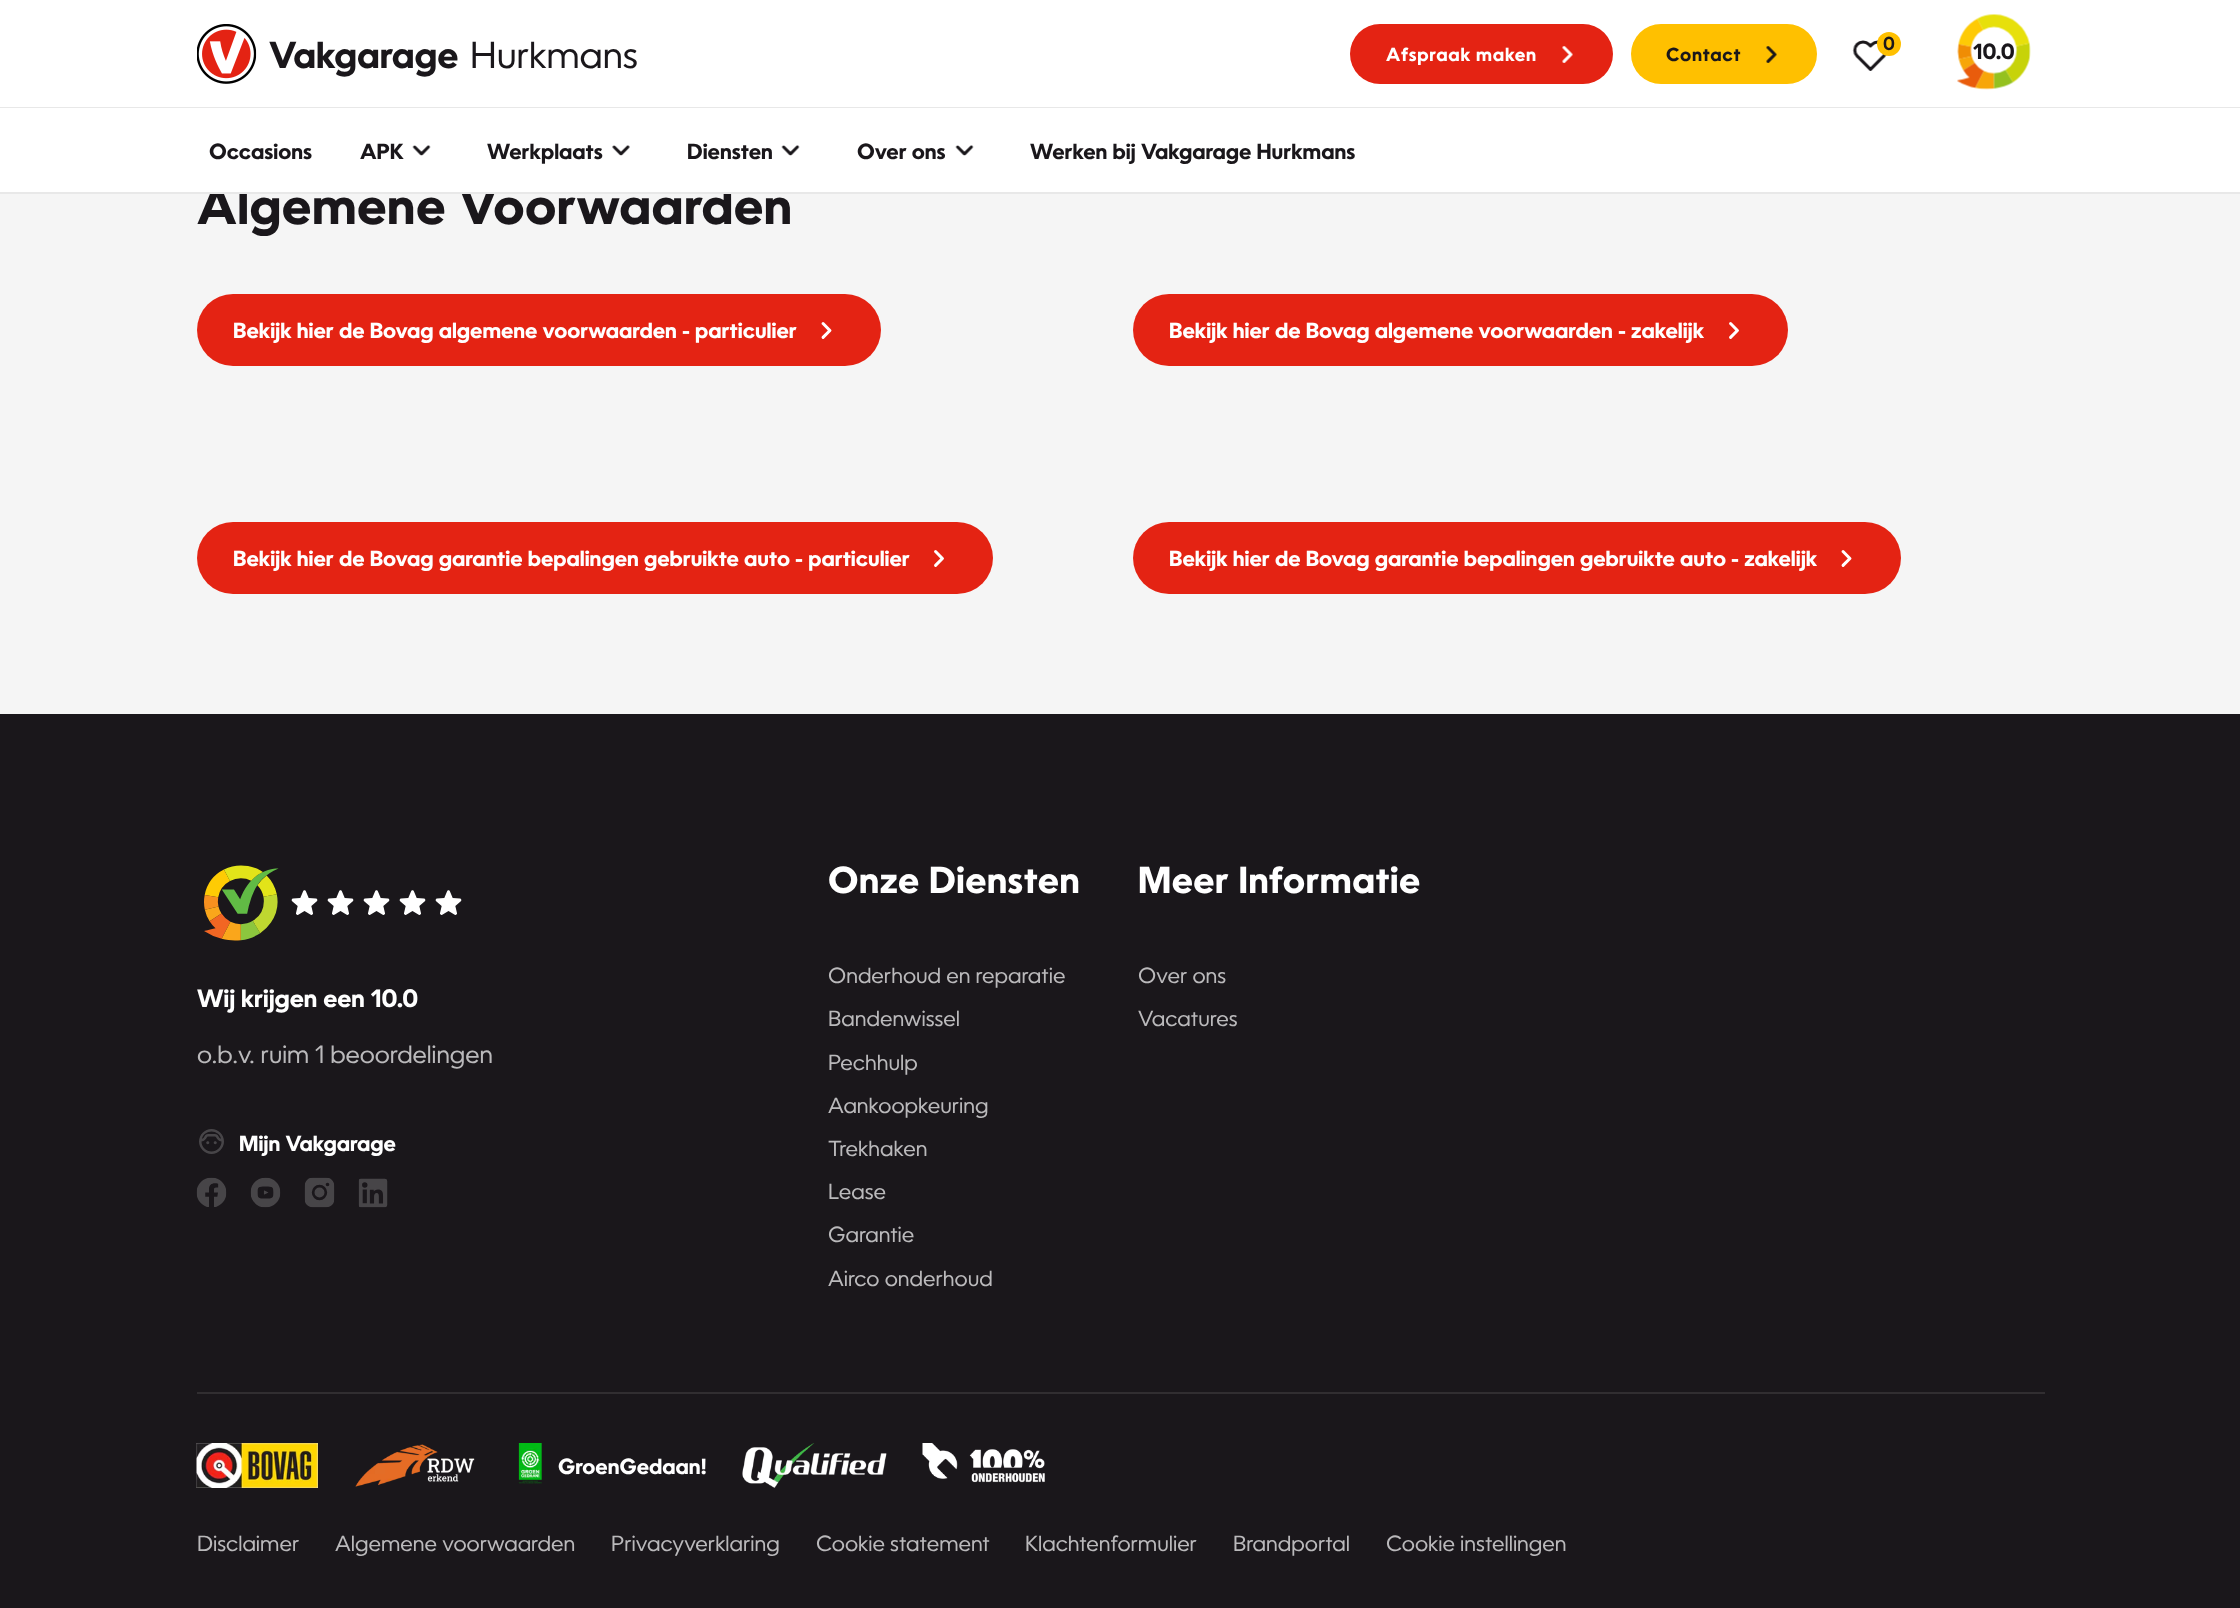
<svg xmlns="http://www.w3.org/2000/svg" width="2240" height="1608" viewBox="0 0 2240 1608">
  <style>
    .t1 { font: bold 36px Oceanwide; fill: #1a171b; }
    .t2 { font: 36px Oceanwide; fill: #1a171b; }
    .t3 { font: 600 18px Oceanwide; fill: #1a171b; }
    .t4 { font: bold 18px Oceanwide; letter-spacing: 0.75px; fill: #fff; }
    .t5 { font: bold 18px Oceanwide; letter-spacing: 0.75px; fill: #1a171b; }
    .t6 { font: bold 21px Oceanwide; fill: #1a171b; }
    .t7 { font: bold 50.4px Oceanwide; letter-spacing: 0.5px; fill: #1a171b; }
    .t8 { font: bold 21px Oceanwide; fill: #fff; }
    .t9 { font: bold 24px Oceanwide; fill: #fff; }
    .t10 { font: 24px Oceanwide; fill: #bab9bb; }
    .t11 { font: bold 36px Oceanwide; letter-spacing: 0.5px; fill: #fff; }
    .t12 { font: 21px Oceanwide; fill: #bab9bb; }
  </style>
  <rect width="100%" height="100%" fill="#f5f5f5"/>
  <rect x="0" y="0" width="2240" height="107" fill="#fff"/>
  <rect x="0" y="107" width="2240" height="1" fill="#e8e8e8"/>
  <image x="197" y="24" width="60" height="60" href="images/1.png"/>
  <text x="269" y="68" class="t1">Vakgarage</text>
  <text x="470" y="68" class="t2">Hurkmans</text>
  <image x="1852" y="40" width="35" height="31" href="images/2.png"/>
  <circle cx="1889" cy="44" r="12" fill="#ffc000"/>
  <text x="1883" y="50" class="t3">0</text>
  <rect x="1350" y="24" width="263" height="60" rx="30" fill="#e42313"/>
  <text x="1386" y="61" class="t4">Afspraak maken</text>
  <image x="1562" y="46" width="11" height="17" href="images/3.png"/>
  <rect x="1631" y="24" width="186" height="60" rx="30" fill="#ffc000"/>
  <text x="1666" y="61" class="t5">Contact</text>
  <image x="1766" y="46" width="11" height="17" href="images/4.png"/>
  <image x="1957" y="14" width="74" height="76" href="images/5.png"/>
  <text x="1973" y="59" class="t6">10.0</text>
  <text x="197" y="224" class="t7">Algemene Voorwaarden</text>
  <rect x="0" y="108" width="2240" height="84" fill="#fff"/>
  <rect x="0" y="192" width="2240" height="2" fill="#e8e8e8"/>
  <text x="209" y="159" class="t6">Occasions</text>
  <text x="360" y="159" class="t6">APK</text>
  <image x="412" y="145" width="19" height="11" href="images/6.png"/>
  <text x="487" y="159" class="t6">Werkplaats</text>
  <image x="612" y="145" width="18" height="11" href="images/7.png"/>
  <text x="687" y="159" class="t6">Diensten</text>
  <image x="781" y="145" width="19" height="11" href="images/6.png"/>
  <text x="857" y="159" class="t6">Over ons</text>
  <image x="955" y="145" width="19" height="11" href="images/6.png"/>
  <text x="1030" y="159" class="t6">Werken bij Vakgarage Hurkmans</text>
  <rect x="197" y="294" width="684" height="72" rx="36" fill="#e42313"/>
  <text x="233" y="338" class="t8">Bekijk hier de Bovag algemene voorwaarden - particulier</text>
  <image x="821" y="322" width="11" height="17" href="images/8.png"/>
  <rect x="1133" y="294" width="655" height="72" rx="36" fill="#e42313"/>
  <text x="1169" y="338" class="t8">Bekijk hier de Bovag algemene voorwaarden - zakelijk</text>
  <image x="1729" y="322" width="10" height="17" href="images/9.png"/>
  <rect x="197" y="522" width="796" height="72" rx="36" fill="#e42313"/>
  <text x="233" y="566" class="t8">Bekijk hier de Bovag garantie bepalingen gebruikte auto - particulier</text>
  <image x="934" y="550" width="10" height="17" href="images/9.png"/>
  <rect x="1133" y="522" width="768" height="72" rx="36" fill="#e42313"/>
  <text x="1169" y="566" class="t8">Bekijk hier de Bovag garantie bepalingen gebruikte auto - zakelijk</text>
  <image x="1841" y="550" width="11" height="17" href="images/8.png"/>
  <rect x="0" y="714" width="2240" height="894" fill="#1a171b"/>
  <image x="204" y="865" width="75" height="76" href="images/10.png"/>
  <image x="291" y="890" width="27" height="25" href="images/11.png"/>
  <image x="327" y="890" width="27" height="25" href="images/11.png"/>
  <image x="363" y="890" width="27" height="25" href="images/11.png"/>
  <image x="399" y="890" width="27" height="25" href="images/11.png"/>
  <image x="435" y="890" width="27" height="25" href="images/11.png"/>
  <text x="197" y="1007" class="t9">Wij krijgen een 10.0</text>
  <text x="197" y="1063" class="t10">o.b.v. ruim 1 beoordelingen</text>
  <image x="199" y="1129" width="25" height="25" href="images/12.png"/>
  <text x="239" y="1151" class="t8">Mijn Vakgarage</text>
  <image x="196" y="1177" width="31" height="30" href="images/13.png"/>
  <image x="250" y="1177" width="31" height="31" href="images/14.png"/>
  <image x="304" y="1177" width="31" height="31" href="images/15.png"/>
  <image x="358" y="1178" width="30" height="30" href="images/16.png"/>
  <text x="828" y="893" class="t11">Onze Diensten</text>
  <text x="828" y="983" class="t12">Onderhoud en reparatie</text>
  <text x="828" y="1026" class="t12">Bandenwissel</text>
  <text x="828" y="1070" class="t12">Pechhulp</text>
  <text x="828" y="1113" class="t12">Aankoopkeuring</text>
  <text x="828" y="1156" class="t12">Trekhaken</text>
  <text x="828" y="1199" class="t12">Lease</text>
  <text x="828" y="1242" class="t12">Garantie</text>
  <text x="828" y="1286" class="t12">Airco onderhoud</text>
  <text x="1138" y="893" class="t11">Meer Informatie</text>
  <text x="1138" y="983" class="t12">Over ons</text>
  <text x="1138" y="1026" class="t12">Vacatures</text>
  <rect x="197" y="1392" width="1848" height="2" fill="#312e31"/>
  <image x="196" y="1443" width="122" height="45" href="images/17.png"/>
  <image x="355" y="1444" width="120" height="43" href="images/18.png"/>
  <image x="518" y="1443" width="24" height="41" href="images/19.png"/>
  <text x="558" y="1474" class="t8">GroenGedaan!</text>
  <image x="742" y="1443" width="145" height="45" href="images/20.png"/>
  <image x="922" y="1443" width="123" height="40" href="images/21.png"/>
  <text x="197" y="1551" class="t12">Disclaimer</text>
  <text x="335" y="1551" class="t12">Algemene voorwaarden</text>
  <text x="611" y="1551" class="t12">Privacyverklaring</text>
  <text x="816" y="1551" class="t12">Cookie statement</text>
  <text x="1025" y="1551" class="t12">Klachtenformulier</text>
  <text x="1233" y="1551" class="t12">Brandportal</text>
  <text x="1386" y="1551" class="t12">Cookie instellingen</text>
</svg>
